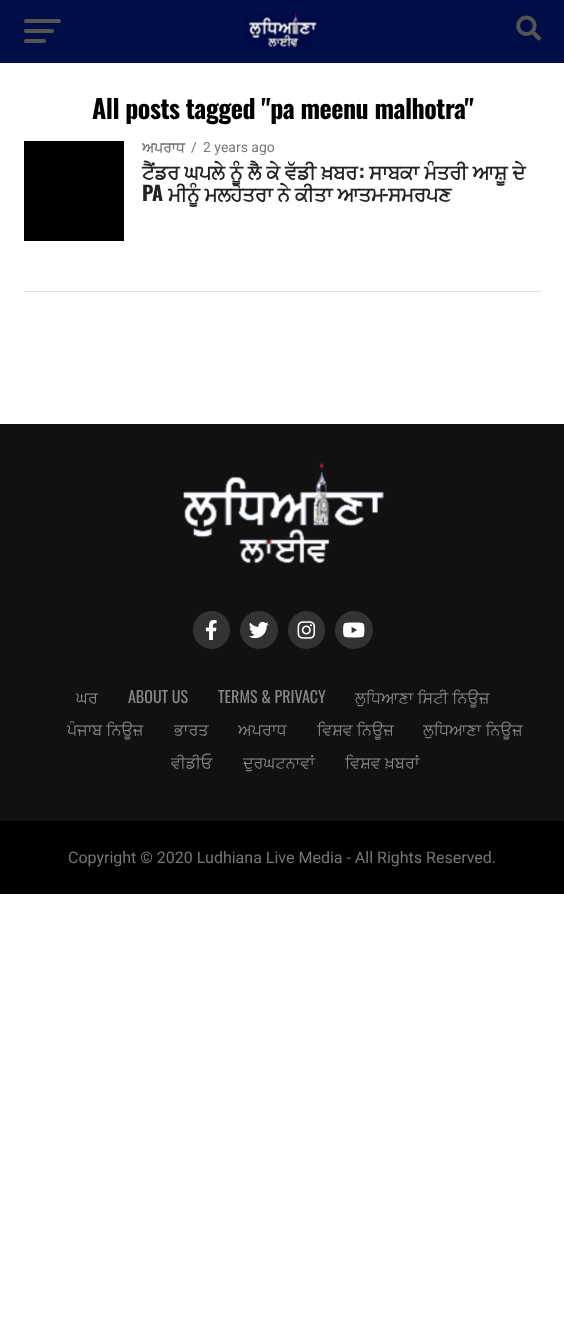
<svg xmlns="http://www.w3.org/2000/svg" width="564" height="1326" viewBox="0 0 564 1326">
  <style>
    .t1 { font: bold 26px Oswald; letter-spacing: -0.5px; fill: #000; }
    .t2 { font: bold 14px FreeSans; fill: #777; }
    .t3 { font: 14px Roboto; fill: #777; }
    .t4 { font: bold 20px FreeSans; letter-spacing: -0.4px; fill: #222; }
    .t5 { font: bold 20px Oswald; letter-spacing: -0.4px; fill: #222; }
    .t6 { font: 16px FreeSans; fill: #888; }
    .t7 { font: 16px Oswald; fill: #888; }
    .t8 { font: 16px Roboto; fill: #777; }
  </style>
  <rect width="100%" height="100%" fill="#fff"/>
  <rect x="0" y="0" width="564" height="63" fill="#000d47"/>
  <rect x="24" y="19" width="37" height="4" rx="2" fill="#555"/>
  <rect x="24" y="29" width="30" height="4" rx="2" fill="#555"/>
  <rect x="24" y="39" width="22" height="4" rx="2" fill="#555"/>
  <image x="245" y="12" width="74" height="38" href="images/1.png"/>
  <image x="516" y="15" width="26" height="26" href="images/2.png"/>
  <text x="92" y="119" class="t1">All posts tagged "pa meenu malhotra"</text>
  <rect x="24" y="141" width="100" height="100" fill="#000"/>
  <text x="142" y="152" class="t2">ਅਪਰਾਧ</text>
  <text x="191" y="152" class="t3">/</text>
  <text x="203" y="152" class="t3">2 years ago</text>
  <text x="142" y="179" word-spacing="0.75" class="t4">ਟੈਂਡਰ ਘਪਲੇ ਨੂੰ ਲੈ ਕੇ ਵੱਡੀ ਖ਼ਬਰ</text>
  <text x="359" y="179" class="t5">:</text>
  <text x="369" y="179" word-spacing="0.75" class="t4">ਸਾਬਕਾ ਮੰਤਰੀ ਆਸ਼ੂ ਦੇ</text>
  <text x="142" y="201" class="t5">PA</text>
  <text x="168" y="201" word-spacing="0.5" class="t4">ਮੀਨੂੰ ਮਲਹੋਤਰਾ ਨੇ ਕੀਤਾ ਆਤਮ</text>
  <text x="382" y="201" class="t5">-</text>
  <text x="388" y="201" class="t4">ਸਮਰਪਣ</text>
  <rect x="24" y="291" width="517" height="1" fill="#ddd"/>
  <rect x="0" y="424" width="564" height="397" fill="#111"/>
  <image x="182" y="463" width="203" height="101" href="images/3.png"/>
  <rect x="193" y="611" width="37" height="38" rx="18.5" fill="#333"/>
  <image x="205" y="620" width="12" height="20" href="images/4.png"/>
  <circle cx="259" cy="630" r="19" fill="#333"/>
  <image x="248" y="621" width="21" height="18" href="images/5.png"/>
  <rect x="288" y="611" width="37" height="38" rx="18.5" fill="#333"/>
  <image x="297" y="621" width="19" height="18" href="images/6.png"/>
  <circle cx="354" cy="630" r="19" fill="#333"/>
  <image x="343" y="622" width="22" height="16" href="images/7.png"/>
  <text x="76" y="703" class="t6">ਘਰ</text>
  <text x="128" y="703" class="t7">ABOUT US</text>
  <text x="218" y="703" class="t7">TERMS &amp; PRIVACY</text>
  <text x="355" y="703" class="t6">ਲੁਧਿਆਣਾ ਸਿਟੀ ਨਿਊਜ਼</text>
  <text x="67" y="735" class="t6">ਪੰਜਾਬ ਨਿਊਜ਼</text>
  <text x="174" y="735" class="t6">ਭਾਰਤ</text>
  <text x="238" y="735" class="t6">ਅਪਰਾਧ</text>
  <text x="317" y="735" class="t6">ਵਿਸ਼ਵ ਨਿਊਜ਼</text>
  <text x="423" y="735" class="t6">ਲੁਧਿਆਣਾ ਨਿਊਜ਼</text>
  <text x="171" y="768" class="t6">ਵੀਡੀਓ</text>
  <text x="243" y="768" class="t6">ਦੁਰਘਟਨਾਵਾਂ</text>
  <text x="345" y="768" class="t6">ਵਿਸ਼ਵ ਖ਼ਬਰਾਂ</text>
  <rect x="0" y="821" width="564" height="73" fill="#000"/>
  <text x="68" y="863" class="t8">Copyright © 2020 Ludhiana Live Media - All Rights Reserved.</text>
</svg>
